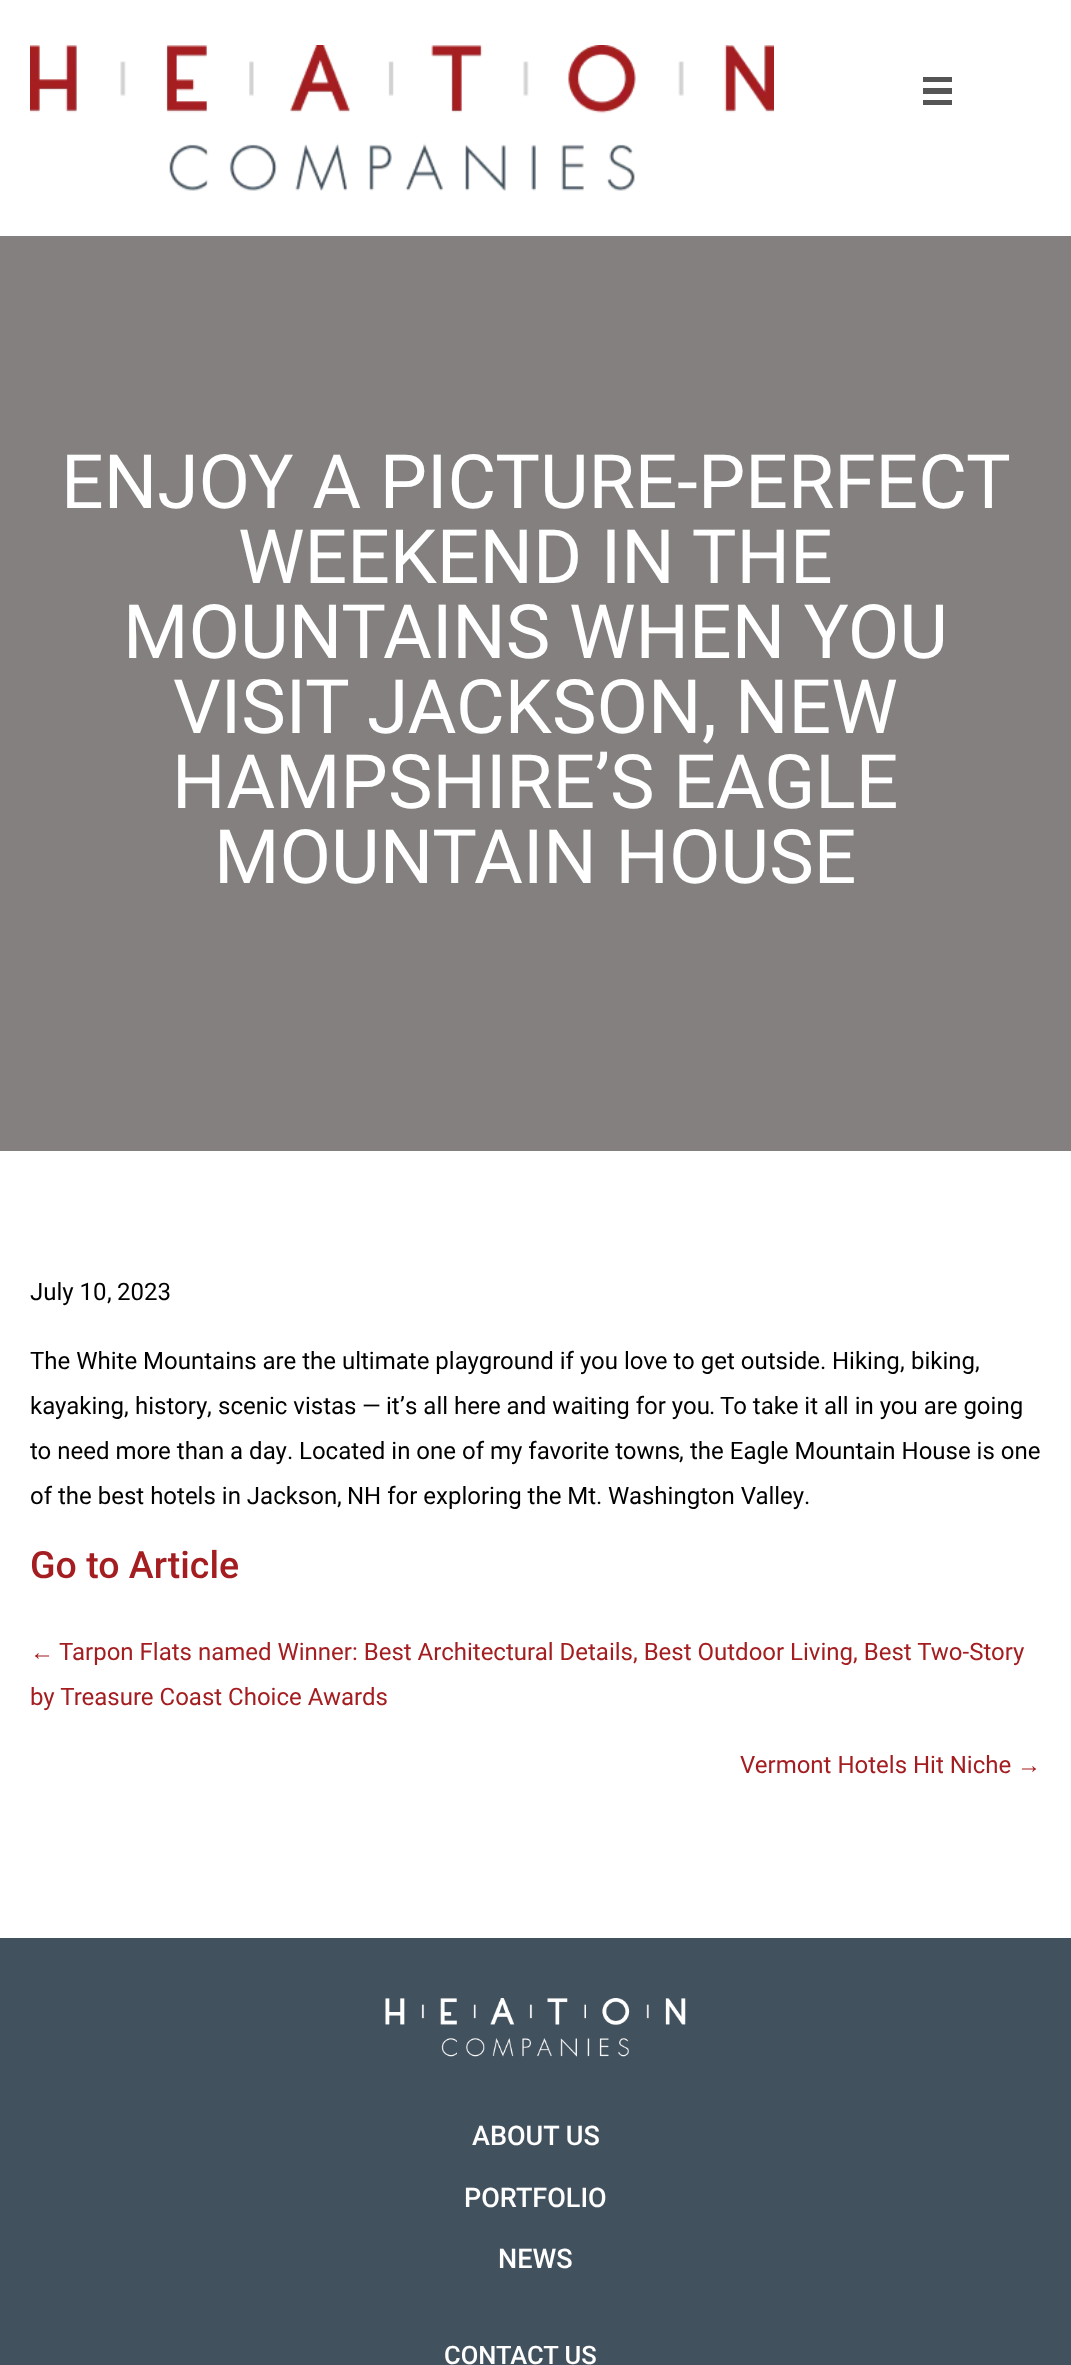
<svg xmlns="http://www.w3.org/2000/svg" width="1071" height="2365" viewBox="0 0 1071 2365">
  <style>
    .t1 { font: 75px Roboto; fill: #fff; }
    .t2 { font: 75px 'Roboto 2'; fill: #fff; }
    .t3 { font: 24px Roboto; fill: #000; }
    .t4 { font: 24px 'Roboto 2'; fill: #000; }
    .t5 { font: 500 37.5px Roboto; fill: #a41e21; }
    .t6 { font: 24px Liberation Sans; fill: #a41e21; }
    .t7 { font: 24px 'Roboto 2'; fill: #a41e21; }
    .t8 { font: 500 27px Roboto; fill: #fff; }
    .t9 { font: 500 25.5px Roboto; fill: #fff; }
  </style>
  <rect width="100%" height="100%" fill="#fff"/>
  <image x="30" y="45" width="744" height="146" href="images/1.png"/>
  <rect x="923" y="77" width="29" height="5" fill="#555"/>
  <rect x="923" y="88" width="29" height="6" fill="#555"/>
  <rect x="923" y="100" width="29" height="5" fill="#555"/>
  <rect x="0" y="236" width="1071" height="915" fill="#858080"/>
  <text x="61" y="508" class="t1">ENJOY A PICTURE</text>
  <text x="677" y="508" class="t2">-</text>
  <text x="698" y="508" class="t1">PERFECT</text>
  <text x="238" y="583" class="t1">WEEKEND IN THE</text>
  <text x="123" y="658" class="t1">MOUNTAINS WHEN YOU</text>
  <text x="173" y="733" class="t1">VISIT JACKSON</text>
  <text x="702" y="733" class="t2">,</text>
  <text x="735" y="733" class="t1">NEW</text>
  <text x="172" y="808" class="t1">HAMPSHIRE</text>
  <text x="595" y="808" class="t2">’</text>
  <text x="610" y="808" class="t1">S EAGLE</text>
  <text x="214" y="883" class="t1">MOUNTAIN HOUSE</text>
  <text x="30" y="1300" class="t3">July 10</text>
  <text x="107" y="1300" class="t4">,</text>
  <text x="117" y="1300" class="t3">2023</text>
  <text x="30" y="1369" class="t3">The White Mountains are the ultimate playground if you love to get outside</text>
  <text x="820" y="1369" class="t4">.</text>
  <text x="832" y="1369" class="t3">Hiking</text>
  <text x="900" y="1369" class="t4">,</text>
  <text x="911" y="1369" class="t3">biking</text>
  <text x="975" y="1369" class="t4">,</text>
  <text x="30" y="1414" class="t3">kayaking</text>
  <text x="135" y="1414" class="t3">history</text>
  <text x="218" y="1414" class="t3">scenic vistas</text>
  <text x="362" y="1414" class="t4">—</text>
  <text x="386" y="1414" class="t3">it</text>
  <text x="400" y="1414" class="t4">’</text>
  <text x="405" y="1414" class="t3">s all here and waiting for you</text>
  <text x="720" y="1414" class="t3">To take it all in you are going</text>
  <text x="124" y="1414" class="t4">,</text>
  <text x="207" y="1414" class="t4">,</text>
  <text x="709" y="1414" class="t4">.</text>
  <text x="30" y="1459" class="t3">to need more than a day</text>
  <text x="287" y="1459" class="t4">.</text>
  <text x="299" y="1459" class="t3">Located in one of my favorite towns</text>
  <text x="679" y="1459" class="t4">,</text>
  <text x="690" y="1459" class="t3">the Eagle Mountain House is one</text>
  <text x="30" y="1504" class="t3">of the best hotels in Jackson</text>
  <text x="337" y="1504" class="t4">,</text>
  <text x="347" y="1504" class="t3">NH for exploring the Mt</text>
  <text x="596" y="1504" class="t4">.</text>
  <text x="608" y="1504" class="t3">Washington Valley</text>
  <text x="804" y="1504" class="t4">.</text>
  <text x="30" y="1578" class="t5">Go to Article</text>
  <text x="30" y="1660" class="t6">←</text>
  <text x="59" y="1660" class="t7">Tarpon Flats named Winner: Best Architectural Details, Best Outdoor Living, Best Two-Story</text>
  <text x="30" y="1705" class="t7">by Treasure Coast Choice Awards</text>
  <text x="740" y="1773" class="t7">Vermont Hotels Hit Niche</text>
  <text x="1017" y="1773" class="t6">→</text>
  <rect x="0" y="1938" width="1071" height="427" fill="#42515e"/>
  <image x="385" y="1998" width="301" height="59" href="images/2.png"/>
  <text x="472" y="2145" class="t8">ABOUT US</text>
  <text x="464" y="2207" class="t8">PORTFOLIO</text>
  <text x="498" y="2268" class="t8">NEWS</text>
  <text x="444" y="2364" class="t9">CONTACT US</text>
</svg>
